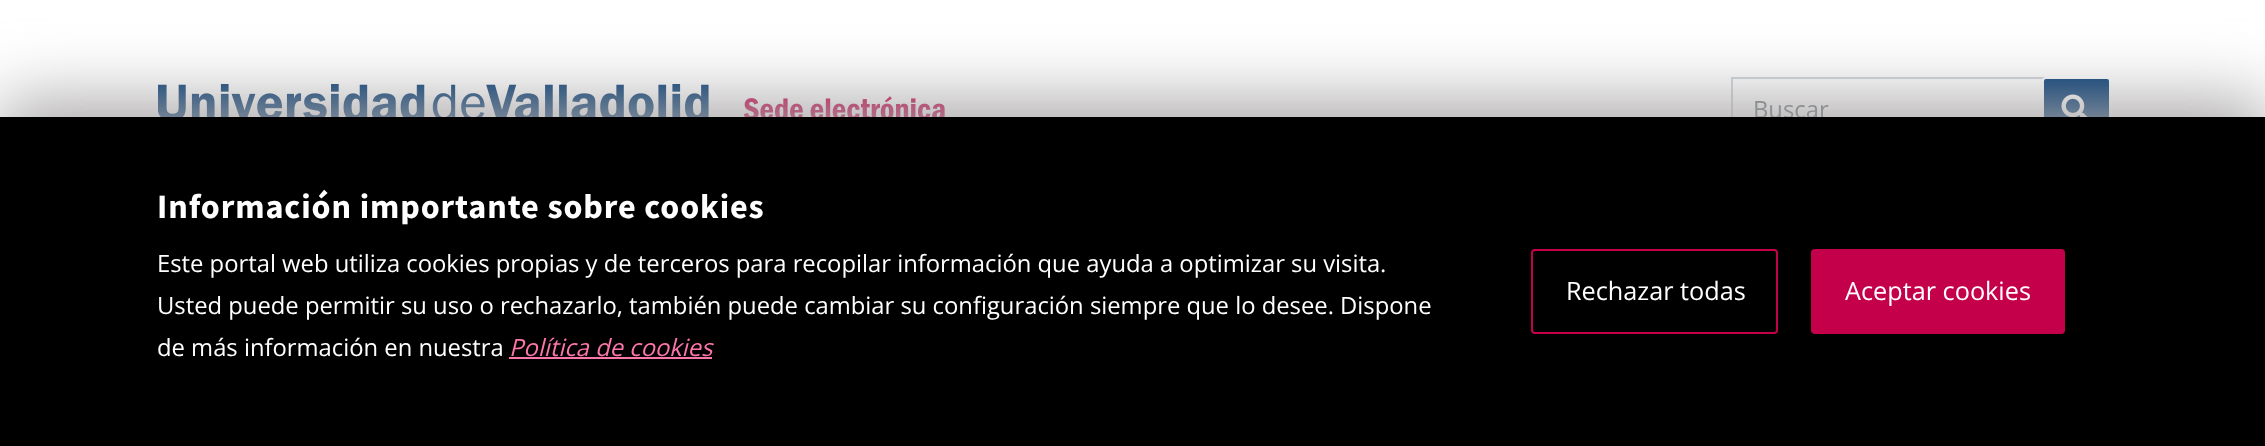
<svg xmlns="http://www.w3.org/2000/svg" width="2265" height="446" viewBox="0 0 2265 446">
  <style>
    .t1 { font: 23.8px Open Sans; fill: #6c757d; }
    .t2 { font: bold 34.2px Source Sans Pro; letter-spacing: 0.9px; fill: #fff; }
    .t3 { font: 23.8px Open Sans; fill: #fff; }
    .t4 { font: italic 23.8px Open Sans; fill: #fd76aa; }
    .t5 { font: 25.25px Open Sans; fill: #fff; }
  </style>
  <rect width="100%" height="100%" fill="#fff"/>
  <image x="158" y="84" width="787" height="33" href="images/1.png"/>
  <rect x="1732" y="78" width="325" height="65" fill="none" stroke="#ced4da" stroke-width="2"/>
  <text x="1753" y="118" class="t1">Buscar</text>
  <rect x="2043" y="78" width="67" height="65" rx="3" fill="#003973" stroke="#fff" stroke-width="2"/>
  <image x="2061" y="94" width="27" height="23" href="images/2.png"/>
  <rect x="0" y="102" width="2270" height="332" fill="#a7a4a4" filter="blur(35px)"/>
  <rect x="0" y="117" width="2265" height="329" fill="#000"/>
  <text x="157" y="218" class="t2">Información importante sobre cookies</text>
  <text x="157" y="272" class="t3">Este portal web utiliza cookies propias y de terceros para recopilar información que ayuda a optimizar su visita.</text>
  <text x="157" y="314" class="t3">Usted puede permitir su uso o rechazarlo, también puede cambiar su configuración siempre que lo desee. Dispone</text>
  <text x="157" y="356" class="t3">de más información en nuestra</text>
  <text x="509" y="356" class="t4">Política de cookies</text>
  <rect x="509" y="357" width="203" height="2" fill="#fd76aa"/>
  <rect x="1532" y="250" width="245" height="83" rx="3" fill="none" stroke="#c4004b" stroke-width="2"/>
  <text x="1566" y="300" class="t5">Rechazar todas</text>
  <rect x="1812" y="250" width="252" height="83" rx="3" fill="#c4004b" stroke="#c4004b" stroke-width="2"/>
  <text x="1845" y="300" class="t5">Aceptar cookies</text>
</svg>
